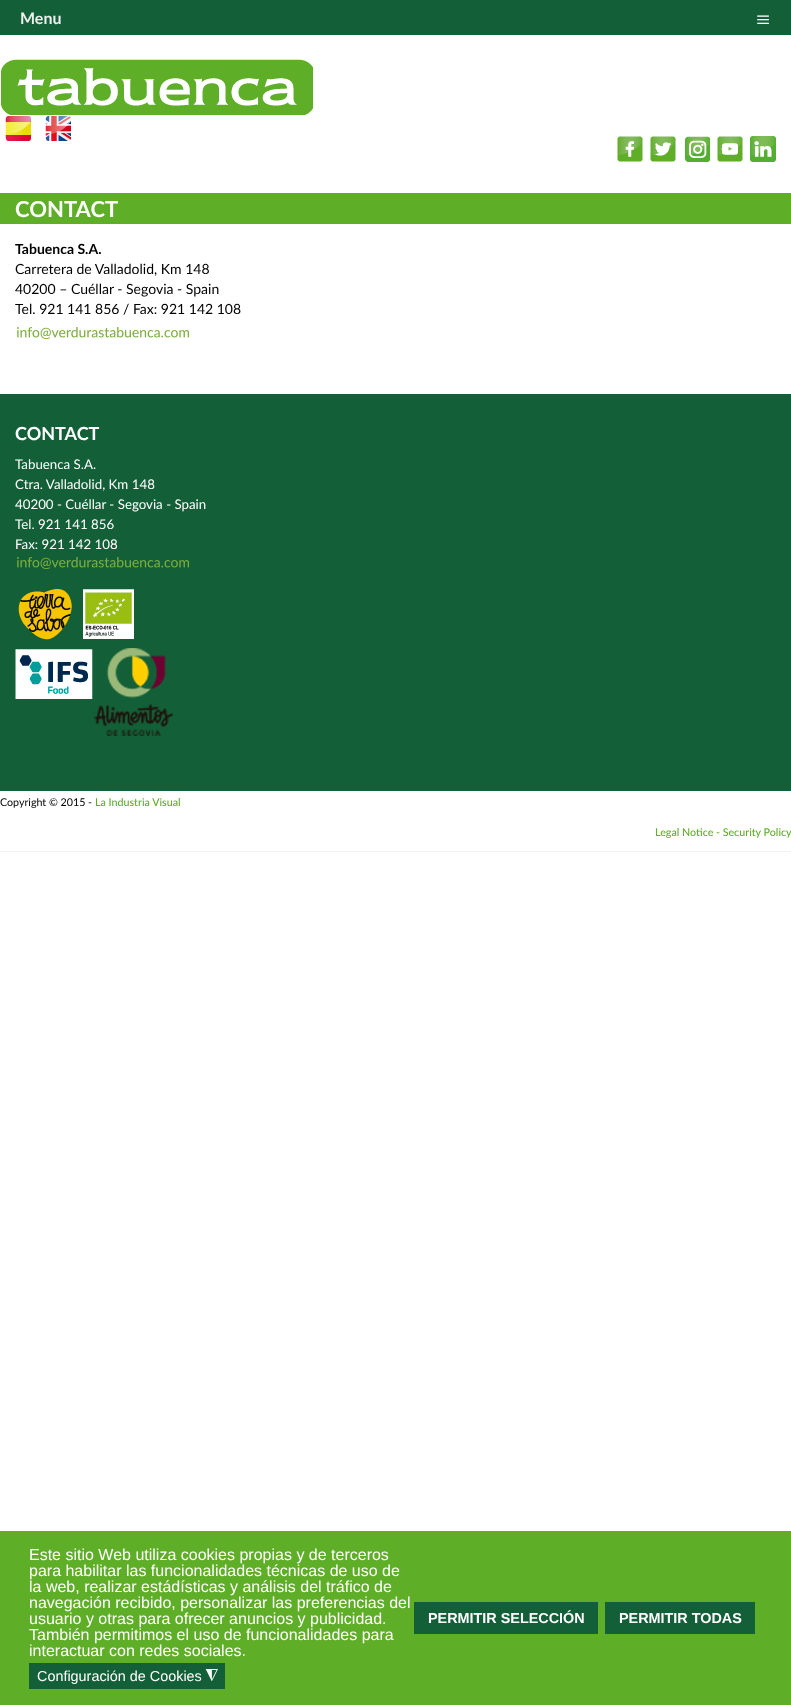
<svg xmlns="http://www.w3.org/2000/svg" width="791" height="1705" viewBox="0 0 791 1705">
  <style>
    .t1 { font: bold 16px Lato; fill: #eee; }
    .t2 { font: 25px Liberation Serif; fill: #fff; }
    .t3 { font: bold 22px Lato; fill: #fff; }
    .t4 { font: bold 14px Lato; fill: #000; }
    .t5 { font: 14px Lato; fill: #000; }
    .t6 { font: bold 18px Lato; fill: #fff; }
    .t7 { font: 13.3px Lato; fill: #fff; }
    .t8 { font: 10.7px Lato; fill: #000; }
    .t9 { font: 500 10.7px Lato; fill: #5fae27; }
    .t10 { font: 16px Liberation Sans; fill: #fff; }
    .t11 { font: 14.4px Liberation Sans; fill: #fff; }
    .t12 { font: 16px DejaVu Sans; fill: #fff; }
    .t13 { font: bold 14.4px Liberation Sans; fill: #fff; }
  </style>
  <rect width="100%" height="100%" fill="#fff"/>
  <rect x="0" y="0" width="791" height="35" fill="#135f37"/>
  <text x="20" y="24" class="t1">Menu</text>
  <text x="756" y="28" class="t2">≡</text>
  <image x="1" y="59" width="312" height="56" href="images/1.png"/>
  <image x="5" y="116" width="26" height="25" href="images/2.png"/>
  <image x="45" y="116" width="26" height="25" href="images/3.png"/>
  <image x="617" y="136" width="26" height="26" href="images/4.png"/>
  <image x="650" y="136" width="26" height="26" href="images/5.png"/>
  <image x="685" y="136" width="25" height="26" href="images/6.png"/>
  <image x="717" y="136" width="26" height="26" href="images/7.png"/>
  <image x="750" y="136" width="26" height="26" href="images/8.png"/>
  <rect x="0" y="193" width="791" height="31" fill="#5fae27"/>
  <text x="15" y="217" class="t3">CONTACT</text>
  <text x="15" y="254" class="t4">Tabuenca S.A.</text>
  <text x="15" y="274" class="t5">Carretera de Valladolid, Km 148</text>
  <text x="15" y="294" class="t5">40200 – Cuéllar - Segovia - Spain</text>
  <text x="15" y="314" class="t5">Tel. 921 141 856 / Fax: 921 142 108</text>
  <image x="17" y="327" width="172" height="12" href="images/9.png"/>
  <rect x="0" y="394" width="791" height="397" fill="#135f37"/>
  <text x="15" y="440" class="t6">CONTACT</text>
  <text x="15" y="469" class="t7">Tabuenca S.A.</text>
  <text x="15" y="489" class="t7">Ctra. Valladolid, Km 148</text>
  <text x="15" y="509" class="t7">40200 - Cuéllar - Segovia - Spain</text>
  <text x="15" y="529" class="t7">Tel. 921 141 856</text>
  <text x="15" y="549" class="t7">Fax: 921 142 108</text>
  <image x="17" y="557" width="172" height="12" href="images/10.png"/>
  <image x="15" y="589" width="158" height="147" href="images/11.png"/>
  <rect x="0" y="851" width="791" height="1" fill="#f2f2f2"/>
  <text x="0" y="806" class="t8">Copyright © 2015 -</text>
  <text x="95" y="806" class="t9">La Industria Visual</text>
  <text x="655" y="836" class="t9">Legal Notice - Security Policy</text>
  <rect x="0" y="1531" width="791" height="174" fill="#5fae27"/>
  <text x="29" y="1560" class="t10">Este sitio Web utiliza cookies propias y de terceros</text>
  <text x="29" y="1576" class="t10">para habilitar las funcionalidades técnicas de uso de</text>
  <text x="29" y="1592" class="t10">la web, realizar estádísticas y análisis del tráfico de</text>
  <text x="29" y="1608" class="t10">navegación recibido, personalizar las preferencias del</text>
  <text x="29" y="1624" class="t10">usuario y otras para ofrecer anuncios y publicidad.</text>
  <text x="29" y="1640" class="t10">También permitimos el uso de funcionalidades para</text>
  <text x="29" y="1656" class="t10">interactuar con redes sociales.</text>
  <rect x="29" y="1663" width="196" height="26" fill="#135f37"/>
  <text x="37" y="1681" class="t11">Configuración de Cookies</text>
  <text x="218" y="1671" transform="rotate(180 218 1671)" class="t12">◮</text>
  <rect x="414" y="1602" width="184" height="32" fill="#135f37"/>
  <text x="428" y="1623" class="t13">PERMITIR SELECCIÓN</text>
  <rect x="605" y="1602" width="150" height="32" fill="#135f37"/>
  <text x="619" y="1623" class="t13">PERMITIR TODAS</text>
</svg>
